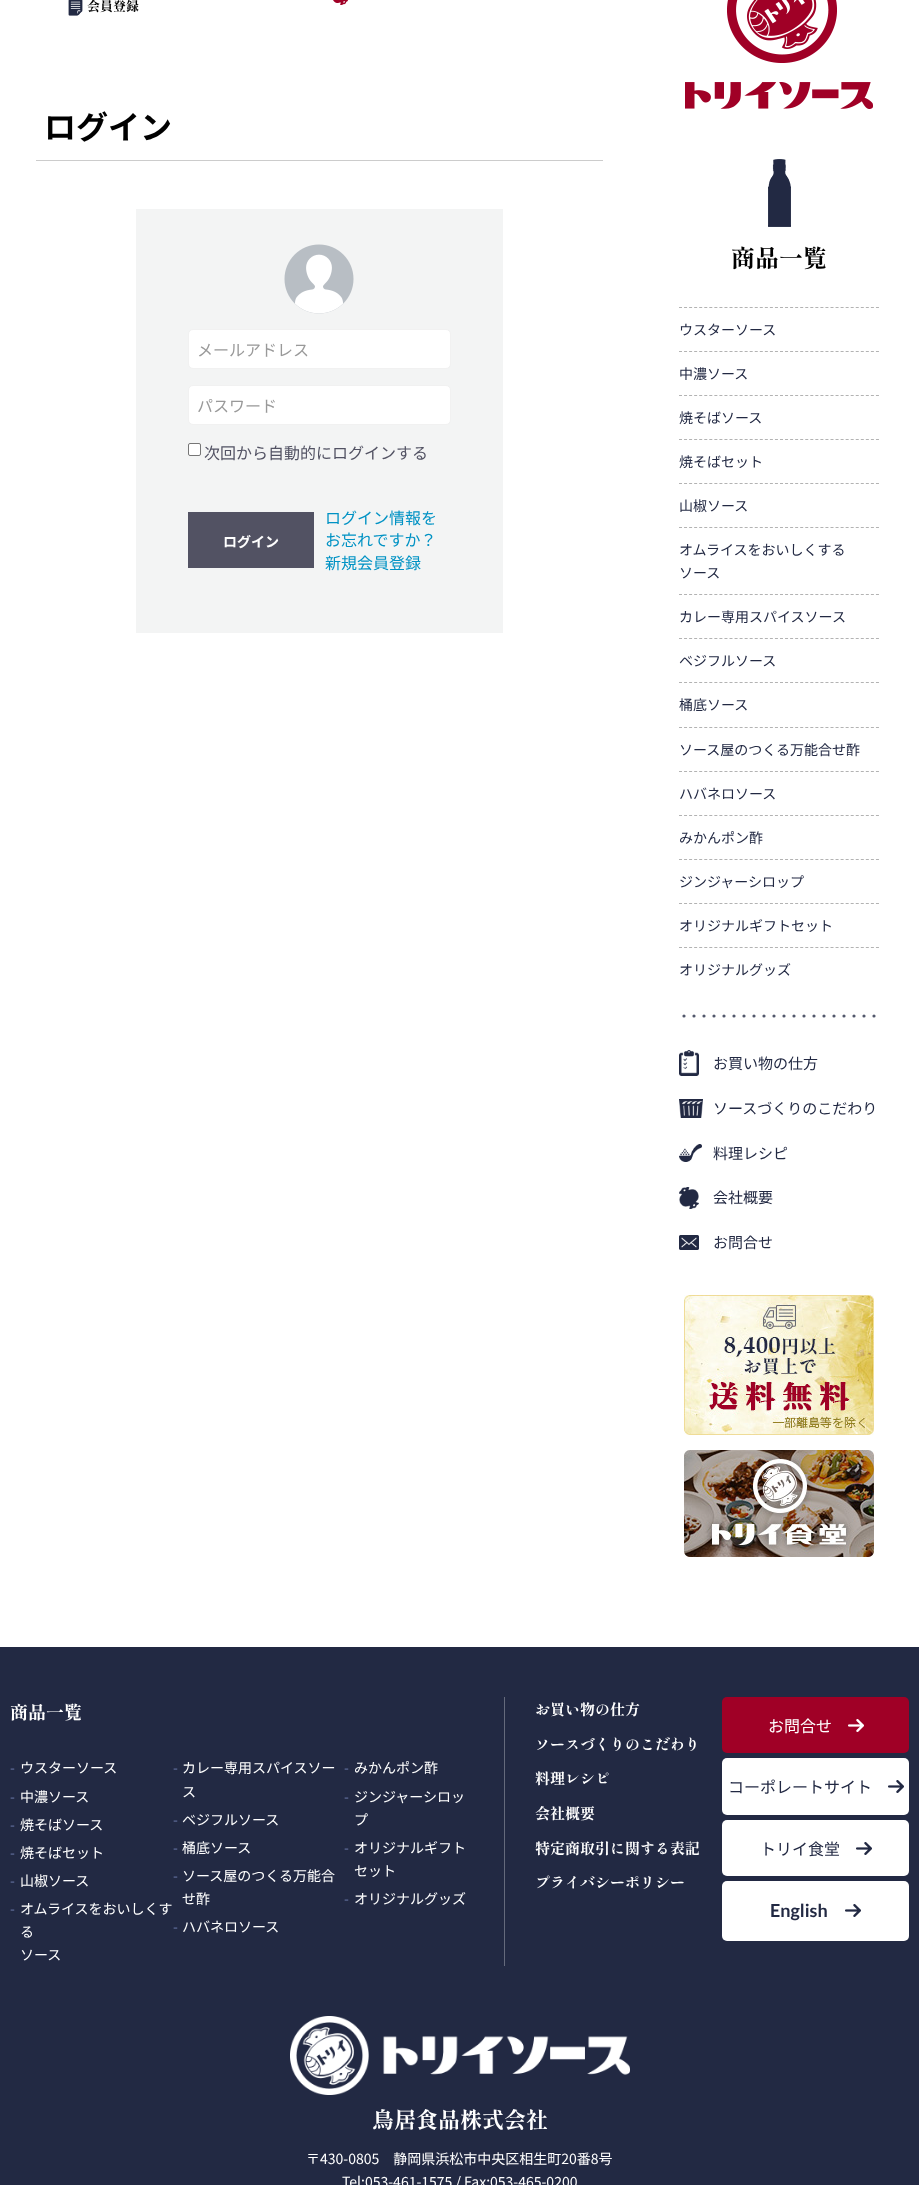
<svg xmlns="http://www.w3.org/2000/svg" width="919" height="2185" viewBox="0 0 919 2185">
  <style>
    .t1 { font: bold 13px Shippori Mincho; fill: #000; }
    .t2 { font: bold 32px Noto Sans JP; fill: #000; }
    .t3 { font: 16px Noto Sans JP; fill: #999; }
    .t4 { font: 16px Noto Sans JP; fill: #525263; }
    .t5 { font: bold 14px Noto Sans JP; fill: #fff; }
    .t6 { font: 16px Noto Sans JP; fill: #0092c4; }
    .t7 { font: bold 24px Shippori Mincho; fill: #000; }
    .t8 { font: 14px Noto Sans JP; fill: #222943; }
    .t9 { font: 15px Noto Sans JP; fill: #222943; }
    .t10 { font: bold 18px Shippori Mincho; fill: #fff; }
    .t11 { font: 14px Noto Sans JP; fill: #6b79aa; }
    .t12 { font: 14px Noto Sans JP; fill: #fff; }
    .t13 { font: bold 15px Shippori Mincho; fill: #fff; }
    .t14 { font: 16px Noto Sans JP; fill: #fff; }
    .t15 { font: 16px Noto Sans JP; fill: #222943; }
    .t16 { font: bold 18px Lato; fill: #222943; }
    .t17 { font: bold 22px Shippori Mincho; fill: #fff; }
  </style>
  <rect width="100%" height="100%" fill="#fff"/>
  <image x="68" y="0" width="15" height="16" href="images/1.png"/>
  <text x="87" y="11" class="t1">会員登録</text>
  <image x="333" y="0" width="15" height="5" href="images/2.png"/>
  <rect x="36" y="160" width="567" height="1" fill="#ccc"/>
  <text x="44" y="139" class="t2">ログイン</text>
  <rect x="136" y="209" width="367" height="424" fill="#f3f4f4"/>
  <image x="284" y="244" width="70" height="70" href="images/3.png"/>
  <rect x="188.5" y="329.5" width="262" height="39" rx="4.5" fill="#fff" stroke="#f1f1f1"/>
  <text x="197" y="356" class="t3">メールアドレス</text>
  <rect x="188.5" y="385.5" width="262" height="39" rx="4.5" fill="#fff" stroke="#f1f1f1"/>
  <text x="197" y="412" class="t3">パスワード</text>
  <rect x="188.5" y="443.5" width="12" height="12" rx="1.5" fill="#fff" stroke="#767676"/>
  <text x="204" y="459" class="t4">次回から自動的にログインする</text>
  <rect x="188" y="512" width="126" height="56" fill="#525263"/>
  <text x="223" y="547" class="t5">ログイン</text>
  <text x="325" y="524" class="t6">ログイン情報を</text>
  <text x="325" y="546" class="t6">お忘れですか？</text>
  <text x="325" y="569" class="t6">新規会員登録</text>
  <image x="685" y="0" width="188" height="109" href="images/4.png"/>
  <image x="768" y="159" width="23" height="68" href="images/5.png"/>
  <text x="731" y="267" class="t7">商品一覧</text>
  <path d="M679 307.5H879" fill="none" stroke="#b3b3b3" stroke-dasharray="3 2.05"/>
  <text x="679" y="335" class="t8">ウスターソース</text>
  <path d="M679 351.5H879" fill="none" stroke="#b3b3b3" stroke-dasharray="3 2.05"/>
  <text x="679" y="379" class="t8">中濃ソース</text>
  <path d="M679 395.5H879" fill="none" stroke="#b3b3b3" stroke-dasharray="3 2.05"/>
  <text x="679" y="423" class="t8">焼そばソース</text>
  <path d="M679 439.5H879" fill="none" stroke="#b3b3b3" stroke-dasharray="3 2.05"/>
  <text x="679" y="467" class="t8">焼そばセット</text>
  <path d="M679 483.5H879" fill="none" stroke="#b3b3b3" stroke-dasharray="3 2.05"/>
  <text x="679" y="511" class="t8">山椒ソース</text>
  <path d="M679 527.5H879" fill="none" stroke="#b3b3b3" stroke-dasharray="3 2.05"/>
  <text x="679" y="555" class="t8">オムライスをおいしくする</text>
  <text x="679" y="578" class="t8">ソース</text>
  <path d="M679 594.5H879" fill="none" stroke="#b3b3b3" stroke-dasharray="3 2.05"/>
  <text x="679" y="622" class="t8">カレー専用スパイスソース</text>
  <path d="M679 638.5H879" fill="none" stroke="#b3b3b3" stroke-dasharray="3 2.05"/>
  <text x="679" y="666" class="t8">ベジフルソース</text>
  <path d="M679 682.5H879" fill="none" stroke="#b3b3b3" stroke-dasharray="3 2.05"/>
  <text x="679" y="710" class="t8">桶底ソース</text>
  <path d="M679 727.5H879" fill="none" stroke="#b3b3b3" stroke-dasharray="3 2.05"/>
  <text x="679" y="755" class="t8">ソース屋のつくる万能合せ酢</text>
  <path d="M679 771.5H879" fill="none" stroke="#b3b3b3" stroke-dasharray="3 2.05"/>
  <text x="679" y="799" class="t8">ハバネロソース</text>
  <path d="M679 815.5H879" fill="none" stroke="#b3b3b3" stroke-dasharray="3 2.05"/>
  <text x="679" y="843" class="t8">みかんポン酢</text>
  <path d="M679 859.5H879" fill="none" stroke="#b3b3b3" stroke-dasharray="3 2.05"/>
  <text x="679" y="887" class="t8">ジンジャーシロップ</text>
  <path d="M679 903.5H879" fill="none" stroke="#b3b3b3" stroke-dasharray="3 2.05"/>
  <text x="679" y="931" class="t8">オリジナルギフトセット</text>
  <path d="M679 947.5H879" fill="none" stroke="#b3b3b3" stroke-dasharray="3 2.05"/>
  <text x="679" y="975" class="t8">オリジナルグッズ</text>
  <path d="M684 1016H874.2" fill="none" stroke="#53586c" stroke-width="3.2" stroke-linecap="round" stroke-dasharray="0 10"/>
  <image x="679" y="1050" width="20" height="26" href="images/6.png"/>
  <text x="713" y="1069" class="t9">お買い物の仕方</text>
  <image x="679" y="1099" width="24" height="19" href="images/7.png"/>
  <text x="713" y="1114" class="t9">ソースづくりのこだわり</text>
  <image x="679" y="1144" width="23" height="18" href="images/8.png"/>
  <text x="713" y="1159" class="t9">料理レシピ</text>
  <image x="679" y="1187" width="20" height="22" href="images/9.png"/>
  <text x="713" y="1203" class="t9">会社概要</text>
  <image x="679" y="1235" width="20" height="15" href="images/10.png"/>
  <text x="713" y="1248" class="t9">お問合せ</text>
  <image x="684" y="1295" width="190" height="140" href="images/11.png"/>
  <image x="684" y="1450" width="190" height="107" href="images/12.png"/>
  <rect x="0" y="1647" width="919" height="538" fill="#222943"/>
  <text x="10" y="1719" class="t10">商品一覧</text>
  <text x="10" y="1773" class="t11">-</text>
  <text x="20" y="1773" class="t12">ウスターソース</text>
  <text x="10" y="1802" class="t11">-</text>
  <text x="20" y="1802" class="t12">中濃ソース</text>
  <text x="10" y="1830" class="t11">-</text>
  <text x="20" y="1830" class="t12">焼そばソース</text>
  <text x="10" y="1858" class="t11">-</text>
  <text x="20" y="1858" class="t12">焼そばセット</text>
  <text x="10" y="1886" class="t11">-</text>
  <text x="20" y="1886" class="t12">山椒ソース</text>
  <text x="10" y="1914" class="t11">-</text>
  <text x="20" y="1914" class="t12">オムライスをおいしくす</text>
  <text x="20" y="1937" class="t12">る</text>
  <text x="20" y="1960" class="t12">ソース</text>
  <text x="173" y="1773" class="t11">-</text>
  <text x="182" y="1773" class="t12">カレー専用スパイスソー</text>
  <text x="182" y="1797" class="t12">ス</text>
  <text x="173" y="1825" class="t11">-</text>
  <text x="182" y="1825" class="t12">ベジフルソース</text>
  <text x="173" y="1853" class="t11">-</text>
  <text x="182" y="1853" class="t12">桶底ソース</text>
  <text x="173" y="1881" class="t11">-</text>
  <text x="182" y="1881" class="t12">ソース屋のつくる万能合</text>
  <text x="182" y="1904" class="t12">せ酢</text>
  <text x="173" y="1932" class="t11">-</text>
  <text x="182" y="1932" class="t12">ハバネロソース</text>
  <text x="344" y="1773" class="t11">-</text>
  <text x="354" y="1773" class="t12">みかんポン酢</text>
  <text x="344" y="1802" class="t11">-</text>
  <text x="354" y="1802" class="t12">ジンジャーシロッ</text>
  <text x="354" y="1825" class="t12">プ</text>
  <text x="344" y="1853" class="t11">-</text>
  <text x="354" y="1853" class="t12">オリジナルギフト</text>
  <text x="354" y="1876" class="t12">セット</text>
  <text x="344" y="1904" class="t11">-</text>
  <text x="354" y="1904" class="t12">オリジナルグッズ</text>
  <rect x="504" y="1697" width="1" height="269" fill="#656a7c"/>
  <text x="535" y="1715" class="t13">お買い物の仕方</text>
  <text x="535" y="1750" class="t13">ソースづくりのこだわり</text>
  <text x="535" y="1784" class="t13">料理レシピ</text>
  <text x="535" y="1819" class="t13">会社概要</text>
  <text x="535" y="1854" class="t13">特定商取引に関する表記</text>
  <text x="535" y="1888" class="t13">プライバシーポリシー</text>
  <rect x="722" y="1697" width="187" height="56" rx="5" fill="#a00026"/>
  <text x="768" y="1732" class="t14">お問合せ</text>
  <image x="848" y="1719" width="16" height="13" href="images/13.png"/>
  <rect x="722" y="1758" width="187" height="57" rx="5" fill="#fff"/>
  <text x="728" y="1793" class="t15">コーポレートサイト</text>
  <image x="888" y="1780" width="16" height="13" href="images/14.png"/>
  <rect x="722" y="1820" width="187" height="56" rx="5" fill="#fff"/>
  <text x="760" y="1855" class="t15">トリイ食堂</text>
  <image x="856" y="1842" width="16" height="13" href="images/14.png"/>
  <rect x="722" y="1881" width="187" height="60" rx="5" fill="#fff"/>
  <text x="770" y="1917" class="t16">English</text>
  <image x="845" y="1904" width="16" height="13" href="images/14.png"/>
  <image x="290" y="2016" width="340" height="79" href="images/15.png"/>
  <text x="372" y="2128" class="t17">鳥居食品株式会社</text>
  <text x="306" y="2164" class="t12">〒430-0805　静岡県浜松市中央区相生町20番8号</text>
  <text x="342" y="2187" class="t12">Tel:053-461-1575 / Fax:053-465-0200</text>
</svg>
